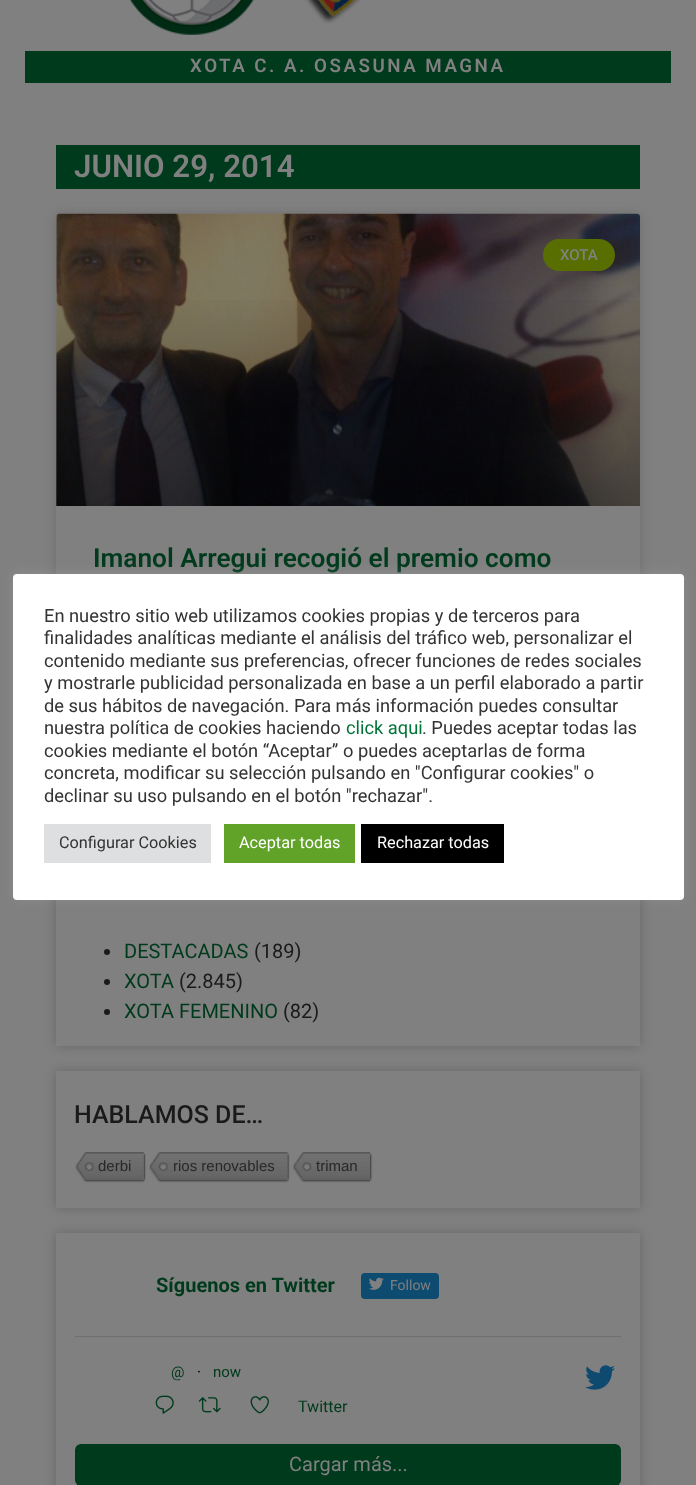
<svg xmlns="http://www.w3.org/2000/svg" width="696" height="1485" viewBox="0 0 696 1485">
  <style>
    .t1 { font: 600 18.75px Roboto; letter-spacing: 2.5px; fill: #808080; }
    .t2 { font: 600 31.25px Roboto; fill: #808080; }
    .t3 { font: 500 15px Roboto; fill: #808080; }
    .t4 { font: 600 26.25px Roboto; fill: #003a1c; }
    .t5 { font: 20px Roboto; fill: #003a1c; }
    .t6 { font: 20px Roboto; fill: #1a1a1a; }
    .t7 { font: 500 25px Roboto; fill: #1a1a1a; }
    .t8 { font: 15px Liberation Sans; fill: #282828; }
    .t9 { font: bold 20px Roboto; fill: #003a1c; }
    .t10 { font: 14px Roboto; fill: #808080; }
    .t11 { font: 15px Roboto; fill: #003a1c; }
    .t12 { font: 15px Roboto; fill: #000; }
    .t13 { font: 16px Roboto; fill: #003a1c; }
    .t14 { font: 20px Roboto; fill: #808080; }
    .t15 { font: 18.3px Roboto; fill: #333; }
    .t16 { font: 18.3px Roboto; fill: #007437; }
    .t17 { font: 16.25px Roboto; fill: #333; }
    .t18 { font: 16.25px Roboto; fill: #fff; }
  </style>
  <defs>
    <linearGradient id="g1" gradientUnits="userSpaceOnUse" x1="348" y1="506" x2="348" y2="214"><stop offset="0" stop-color="#000" stop-opacity="0.35"/><stop offset="0.75" stop-color="#000" stop-opacity="0"/></linearGradient>
    <clipPath id="clip1"><path d="M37 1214H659V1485H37ZM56 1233H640V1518H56Z" clip-rule="evenodd"/></clipPath>
  </defs>
  <rect width="100%" height="100%" fill="#808080"/>
  <image x="129" y="0" width="232" height="35" href="images/1.png"/>
  <rect x="25" y="51" width="646" height="32" fill="#003a1c"/>
  <text x="190" y="72" class="t1">XOTA C. A. OSASUNA MAGNA</text>
  <rect x="56" y="145" width="584" height="44" fill="#003a1c"/>
  <text x="74" y="177" class="t2">JUNIO 29, 2014</text>
  <rect x="56" y="214" width="584" height="607" rx="4" fill="#00000026" filter="blur(6px)"/>
  <rect x="56" y="214" width="584" height="607" rx="4" fill="#808080"/>
  <image x="56" y="213" width="584" height="293" href="images/2.png"/>
  <rect x="56" y="300" width="584" height="206" fill="url(#g1)"/>
  <rect x="543" y="239" width="72" height="32" rx="16" fill="#586e01"/>
  <text x="560" y="260" class="t3">XOTA</text>
  <text x="93" y="567" class="t4">Imanol Arregui recogió el premio como</text>
  <rect x="56" y="859" width="584" height="187" fill="#00000033" filter="blur(6px)"/>
  <rect x="56" y="900" width="584" height="146" fill="#808080"/>
  <circle cx="107" cy="952" r="3" fill="#1a1a1a"/>
  <text x="124" y="958" class="t5">DESTACADAS</text>
  <text x="254" y="958" class="t6">(189)</text>
  <circle cx="107" cy="982" r="3" fill="#1a1a1a"/>
  <text x="124" y="988" class="t5">XOTA</text>
  <text x="179" y="988" class="t6">(2.845)</text>
  <circle cx="107" cy="1012" r="3" fill="#1a1a1a"/>
  <text x="124" y="1018" class="t5">XOTA FEMENINO</text>
  <text x="283" y="1018" class="t6">(82)</text>
  <rect x="56" y="1071" width="584" height="137" fill="#00000033" filter="blur(6px)"/>
  <rect x="56" y="1071" width="584" height="137" fill="#808080"/>
  <text x="74" y="1123" class="t7">HABLAMOS DE…</text>
  <image x="75" y="1152" width="69" height="31" href="images/3.png"/>
  <text x="98" y="1171" class="t8">derbi</text>
  <image x="143" y="1153" width="3" height="29" href="images/4.png"/>
  <image x="149" y="1152" width="139" height="31" href="images/5.png"/>
  <text x="173" y="1171" class="t8">rios renovables</text>
  <image x="287" y="1153" width="3" height="29" href="images/6.png"/>
  <image x="292" y="1152" width="78" height="31" href="images/7.png"/>
  <text x="316" y="1171" class="t8">triman</text>
  <image x="370" y="1152" width="3" height="30" href="images/8.png"/>
  <g clip-path="url(#clip1)">
    <rect x="56" y="1233" width="584" height="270" fill="#00000033" filter="blur(6px)"/>
  </g>
  <rect x="75" y="1336" width="546" height="1" fill="#6f6f6f"/>
  <text x="156" y="1292" class="t9">Síguenos en Twitter</text>
  <rect x="361" y="1273" width="78" height="26" rx="4" fill="#0e4b70"/>
  <image x="369" y="1277" width="15" height="13" href="images/9.png"/>
  <text x="390" y="1290" class="t10">Follow</text>
  <text x="171" y="1377" class="t11">@</text>
  <text x="197" y="1377" class="t12">·</text>
  <text x="213" y="1377" class="t11">now</text>
  <image x="585" y="1365" width="30" height="25" href="images/10.png"/>
  <image x="155" y="1395" width="19" height="19" href="images/11.png"/>
  <image x="198" y="1397" width="23" height="16" href="images/12.png"/>
  <image x="250" y="1396" width="19" height="18" href="images/13.png"/>
  <text x="298" y="1412" class="t13">Twitter</text>
  <rect x="75" y="1444" width="546" height="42" rx="6" fill="#003a1c"/>
  <text x="289" y="1471" class="t14">Cargar más...</text>
  <rect x="13" y="573" width="671" height="326" rx="4" fill="#acabab4d" filter="blur(6px)"/>
  <rect x="13" y="574" width="671" height="326" rx="4" fill="#fff"/>
  <text x="44" y="622" class="t15">En nuestro sitio web utilizamos cookies propias y de terceros para</text>
  <text x="44" y="644" class="t15">finalidades analíticas mediante el análisis del tráfico web, personalizar el</text>
  <text x="44" y="667" class="t15">contenido mediante sus preferencias, ofrecer funciones de redes sociales</text>
  <text x="44" y="689" class="t15">y mostrarle publicidad personalizada en base a un perfil elaborado a partir</text>
  <text x="44" y="712" class="t15">de sus hábitos de navegación. Para más información puedes consultar</text>
  <text x="44" y="734" class="t15">nuestra política de cookies haciendo</text>
  <text x="346" y="734" class="t16">click aqui</text>
  <text x="422" y="734" class="t15">. Puedes aceptar todas las</text>
  <text x="44" y="757" class="t15">cookies mediante el botón “Aceptar” o puedes aceptarlas de forma</text>
  <text x="44" y="779" class="t15">concreta, modificar su selección pulsando en "Configurar cookies" o</text>
  <text x="44" y="802" class="t15">declinar su uso pulsando en el botón "rechazar".</text>
  <rect x="44" y="824" width="167" height="39" fill="#dedfe0"/>
  <text x="59" y="848" class="t17">Configurar Cookies</text>
  <rect x="224" y="824" width="131" height="39" fill="#61a229"/>
  <text x="239" y="848" class="t18">Aceptar todas</text>
  <rect x="361" y="824" width="143" height="39" fill="#000"/>
  <text x="377" y="848" class="t18">Rechazar todas</text>
</svg>
